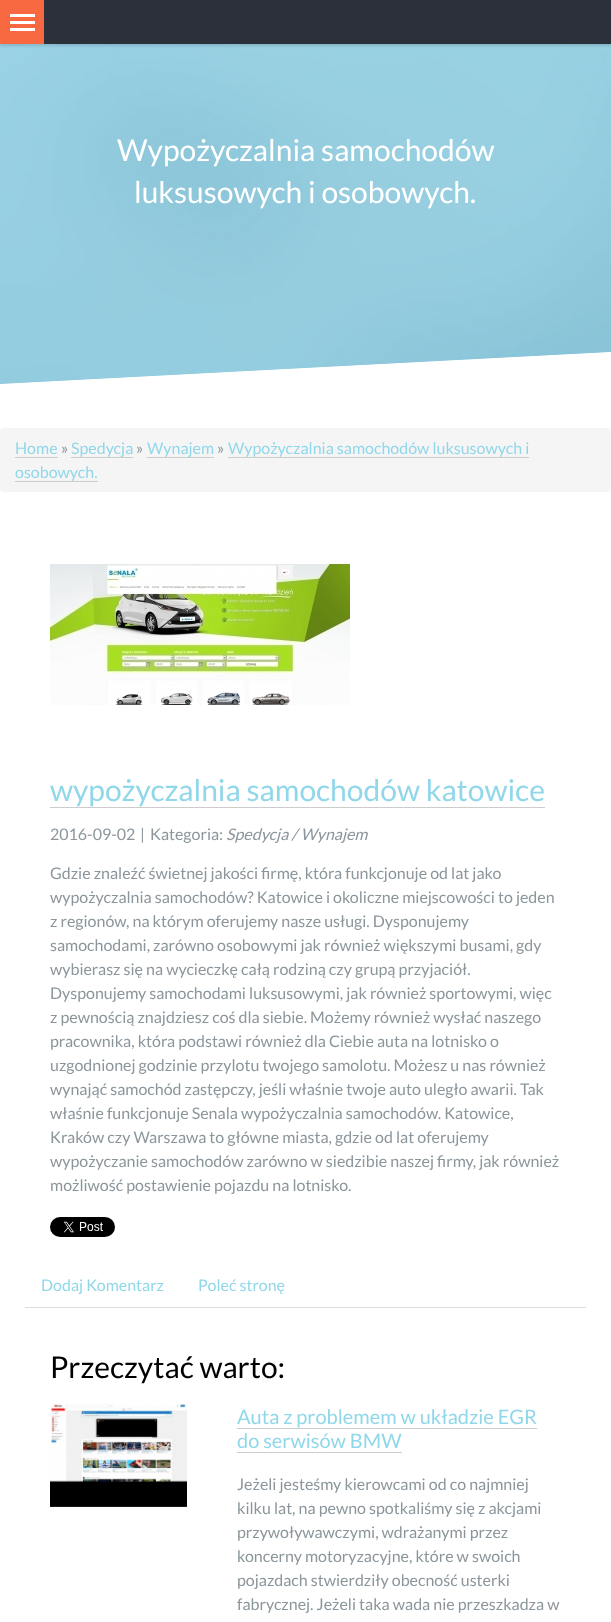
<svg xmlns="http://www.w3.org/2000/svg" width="611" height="1622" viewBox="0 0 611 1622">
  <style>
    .t1 { font: 30px Lato; fill: #fff; }
    .t2 { font: 16px Lato; fill: #90d7ea; }
    .t3 { font: 16px Lato; fill: #8b969c; }
    .t4 { font: 30px Lato; fill: #90d7ea; }
    .t5 { font: italic 16px Lato; fill: #8b969c; }
    .t6 { font: 30px Lato; fill: #000; }
    .t7 { font: 20px Lato; fill: #90d7ea; }
  </style>
  <rect width="100%" height="100%" fill="#fff"/>
  <image x="0" y="44" width="611" height="340" href="images/1.png"/>
  <rect x="0" y="2" width="611" height="44" fill="#0000001f" filter="blur(1px)"/>
  <rect x="44" y="0" width="567" height="44" fill="#2b303b"/>
  <rect x="0" y="0" width="44" height="44" fill="#f86942"/>
  <rect x="10" y="21" width="25" height="3" fill="#fff"/>
  <rect x="10" y="14" width="25" height="3" fill="#fff"/>
  <rect x="10" y="28" width="25" height="3" fill="#fff"/>
  <text x="117" y="161" class="t1">Wypożyczalnia samochodów</text>
  <text x="134" y="203" class="t1">luksusowych i osobowych.</text>
  <rect x="0" y="428" width="611" height="64" rx="4" fill="#f5f5f5"/>
  <text x="15" y="454" class="t2">Home</text>
  <rect x="15" y="457" width="43" height="1" fill="#ccc"/>
  <text x="61" y="454" class="t3">»</text>
  <text x="71" y="454" class="t2">Spedycja</text>
  <rect x="71" y="457" width="62" height="1" fill="#ccc"/>
  <text x="136" y="454" class="t3">»</text>
  <text x="147" y="454" class="t2">Wynajem</text>
  <rect x="147" y="457" width="67" height="1" fill="#ccc"/>
  <text x="217" y="454" class="t3">»</text>
  <text x="228" y="454" class="t2">Wypożyczalnia samochodów luksusowych i</text>
  <rect x="228" y="457" width="301" height="1" fill="#ccc"/>
  <text x="15" y="478" class="t2">osobowych.</text>
  <rect x="15" y="481" width="83" height="1" fill="#ccc"/>
  <image x="50" y="563" width="300" height="142" href="images/2.png"/>
  <text x="50" y="801" class="t4">wypożyczalnia samochodów katowice</text>
  <rect x="50" y="807" width="495" height="1" fill="#ccc"/>
  <text x="50" y="840" class="t3">2016-09-02</text>
  <text x="140" y="840" class="t3">|</text>
  <text x="150" y="840" class="t3">Kategoria:</text>
  <text x="226" y="840" class="t5">Spedycja / Wynajem</text>
  <text x="50" y="879" class="t3">Gdzie znaleźć świetnej jakości firmę, która funkcjonuje od lat jako</text>
  <text x="50" y="903" class="t3">wypożyczalnia samochodów? Katowice i okoliczne miejscowości to jeden</text>
  <text x="50" y="927" class="t3">z regionów, na którym oferujemy nasze usługi. Dysponujemy</text>
  <text x="50" y="951" class="t3">samochodami, zarówno osobowymi jak również większymi busami, gdy</text>
  <text x="50" y="975" class="t3">wybierasz się na wycieczkę całą rodziną czy grupą przyjaciół.</text>
  <text x="50" y="999" class="t3">Dysponujemy samochodami luksusowymi, jak również sportowymi, więc</text>
  <text x="50" y="1023" class="t3">z pewnością znajdziesz coś dla siebie. Możemy również wysłać naszego</text>
  <text x="50" y="1047" class="t3">pracownika, która podstawi również dla Ciebie auta na lotnisko o</text>
  <text x="50" y="1071" class="t3">uzgodnionej godzinie przylotu twojego samolotu. Możesz u nas również</text>
  <text x="50" y="1095" class="t3">wynająć samochód zastępczy, jeśli właśnie twoje auto uległo awarii. Tak</text>
  <text x="50" y="1119" class="t3">właśnie funkcjonuje Senala wypożyczalnia samochodów. Katowice,</text>
  <text x="50" y="1143" class="t3">Kraków czy Warszawa to główne miasta, gdzie od lat oferujemy</text>
  <text x="50" y="1167" class="t3">wypożyczanie samochodów zarówno w siedzibie naszej firmy, jak również</text>
  <text x="50" y="1191" class="t3">możliwość postawienie pojazdu na lotnisko.</text>
  <image x="50" y="1217" width="65" height="20" href="images/3.png"/>
  <rect x="25" y="1307" width="561" height="1" fill="#ddd"/>
  <text x="41" y="1291" class="t2">Dodaj Komentarz</text>
  <text x="198" y="1291" class="t2">Poleć stronę</text>
  <text x="50" y="1378" class="t6">Przeczytać warto:</text>
  <image x="50" y="1404" width="137" height="103" href="images/4.png"/>
  <text x="237" y="1424" class="t7">Auta z problemem w układzie EGR</text>
  <rect x="237" y="1428" width="300" height="1" fill="#ccc"/>
  <text x="237" y="1448" class="t7">do serwisów BMW</text>
  <rect x="237" y="1452" width="165" height="1" fill="#ccc"/>
  <text x="237" y="1490" class="t3">Jeżeli jesteśmy kierowcami od co najmniej</text>
  <text x="237" y="1514" class="t3">kilku lat, na pewno spotkaliśmy się z akcjami</text>
  <text x="237" y="1538" class="t3">przywoływawczymi, wdrażanymi przez</text>
  <text x="237" y="1562" class="t3">koncerny motoryzacyjne, które w swoich</text>
  <text x="237" y="1586" class="t3">pojazdach stwierdziły obecność usterki</text>
  <text x="237" y="1610" class="t3">fabrycznej. Jeżeli taka wada nie przeszkadza w</text>
</svg>
